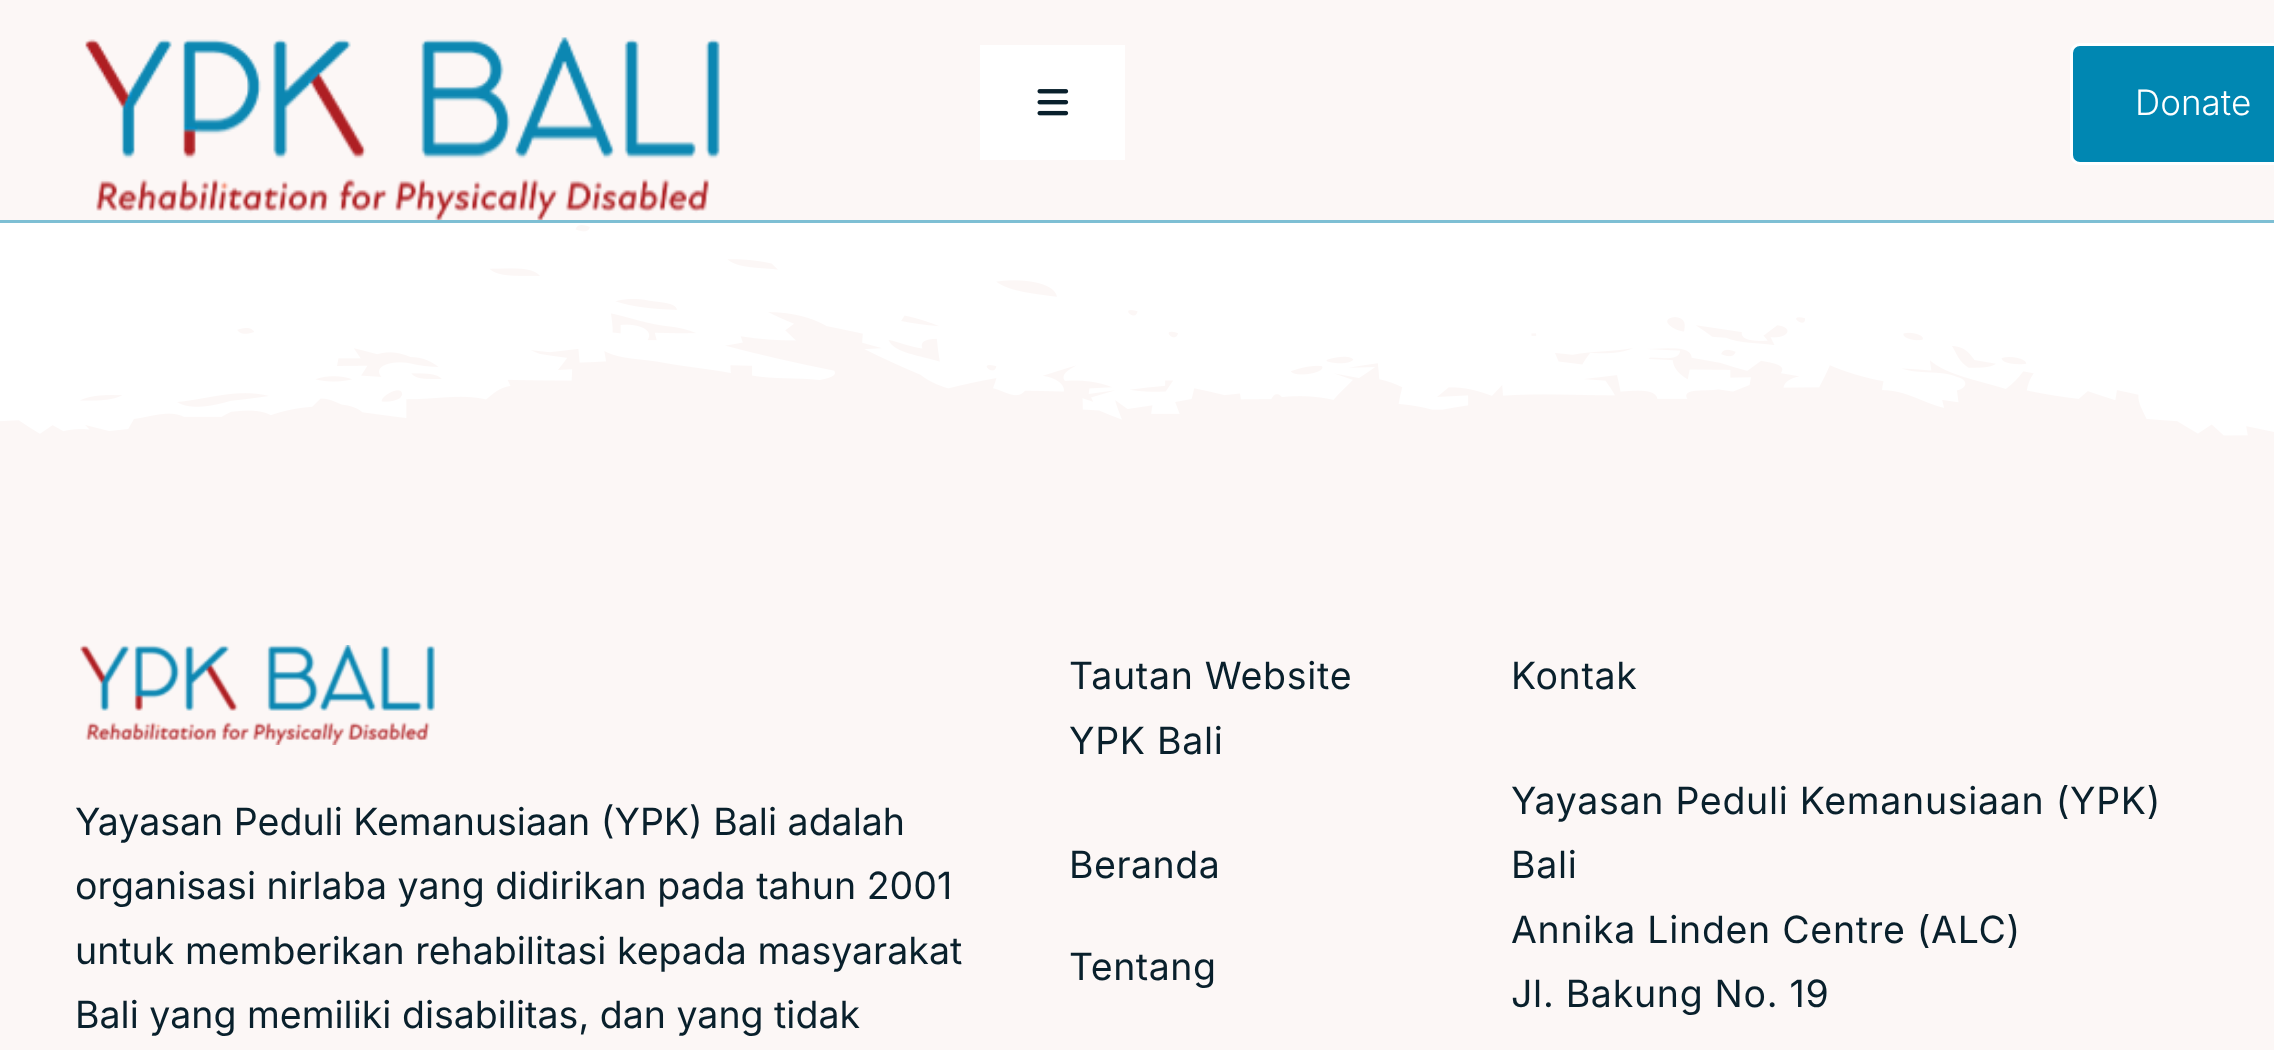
<svg xmlns="http://www.w3.org/2000/svg" width="2274" height="1050" viewBox="0 0 2274 1050">
  <style>
    .t1 { font: 300 35px Inter; fill: #fff; }
    .t2 { font: 37.5px Inter; fill: #09202c; }
    .t3 { font: 37.5px Inter; letter-spacing: 0.7px; fill: #09202c; }
    .t4 { font: 37.5px Inter; letter-spacing: 0.5px; fill: #09202c; }
  </style>
  <rect width="100%" height="100%" fill="#fff"/>
  <rect x="0" y="0" width="2274" height="220" fill="#fcf7f6"/>
  <rect x="0" y="220" width="2274" height="3" fill="#7ebfd4"/>
  <image x="85" y="37" width="635" height="183" href="images/1.png"/>
  <rect x="980" y="45" width="145" height="115" fill="#fff"/>
  <image x="1037" y="89" width="32" height="27" href="images/2.png"/>
  <rect x="2071.5" y="44.5" width="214" height="119" rx="8.5" fill="#0087b2" stroke="#fff" stroke-width="3"/>
  <text x="2135" y="115" class="t1">Donate</text>
  <image x="0" y="225" width="2274" height="240" href="images/3.png"/>
  <rect x="0" y="465" width="2274" height="585" fill="#fcf7f6"/>
  <image x="80" y="645" width="355" height="100" href="images/4.png"/>
  <text x="75" y="835" class="t2">Yayasan Peduli Kemanusiaan (YPK) Bali adalah</text>
  <text x="75" y="899" class="t2">organisasi nirlaba yang didirikan pada tahun 2001</text>
  <text x="75" y="964" class="t2">untuk memberikan rehabilitasi kepada masyarakat</text>
  <text x="75" y="1028" class="t2">Bali yang memiliki disabilitas, dan yang tidak</text>
  <text x="1069" y="689" class="t3">Tautan Website</text>
  <text x="1069" y="754" class="t3">YPK Bali</text>
  <text x="1069" y="878" class="t4">Beranda</text>
  <text x="1069" y="980" class="t4">Tentang</text>
  <text x="1511" y="689" class="t3">Kontak</text>
  <text x="1511" y="814" class="t3">Yayasan Peduli Kemanusiaan (YPK)</text>
  <text x="1511" y="878" class="t3">Bali</text>
  <text x="1511" y="943" class="t3">Annika Linden Centre (ALC)</text>
  <text x="1511" y="1007" class="t3">Jl. Bakung No. 19</text>
</svg>
